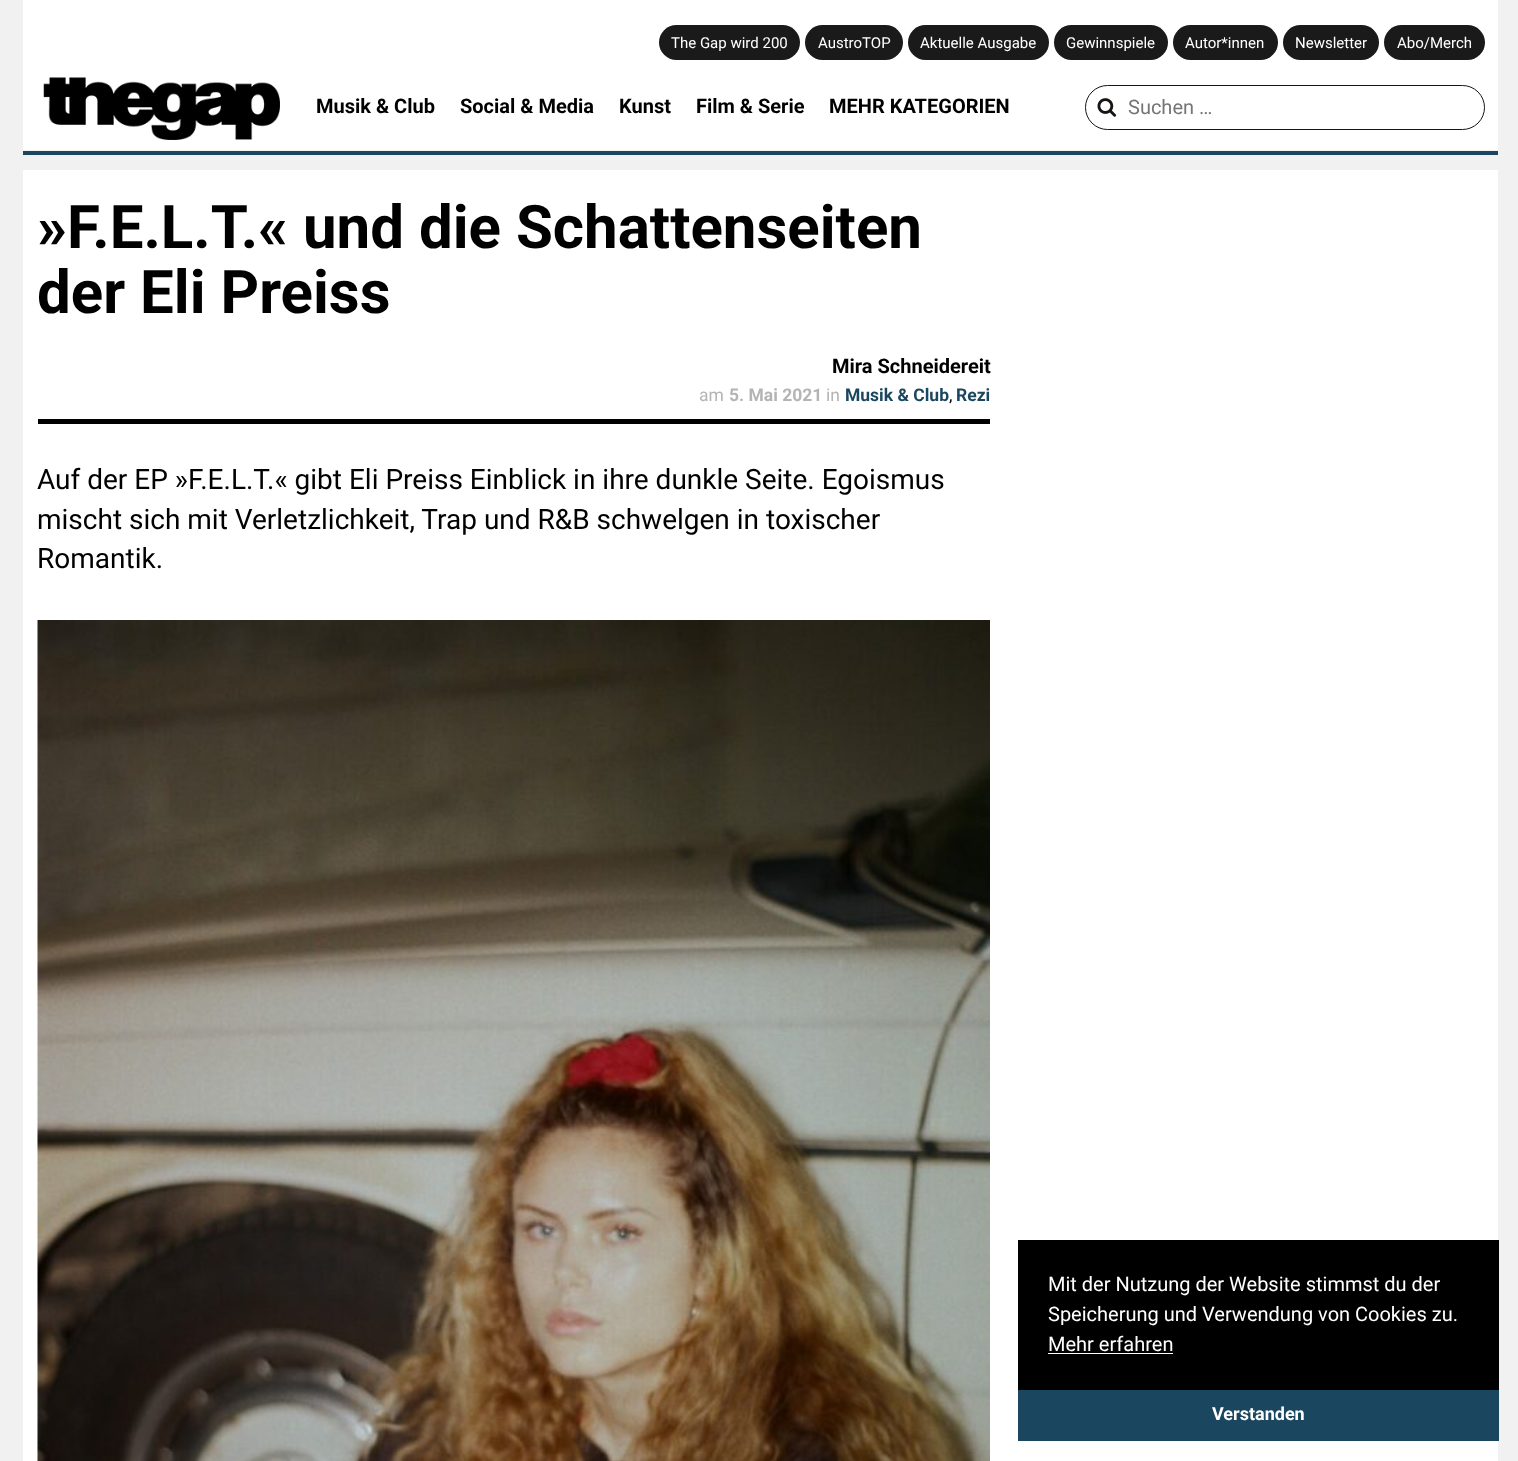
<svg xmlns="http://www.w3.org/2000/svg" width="1518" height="1461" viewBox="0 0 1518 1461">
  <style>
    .t1 { font: 15px Roboto; fill: #fff; }
    .t2 { font: bold 20px Roboto; fill: #000; }
    .t3 { font: 20px Roboto; fill: #757575; }
    .t4 { font: bold 60px Roboto; fill: #000; }
    .t5 { font: 17.5px Roboto; fill: #b4b4b4; }
    .t6 { font: bold 17.5px Roboto; fill: #b4b4b4; }
    .t7 { font: bold 17.5px Roboto; fill: #1a465f; }
    .t8 { font: 17.5px Roboto; fill: #000; }
    .t9 { font: 28px Roboto; fill: #000; }
    .t10 { font: 20px Roboto; fill: #fff; }
    .t11 { font: bold 18px Roboto; fill: #fff; }
  </style>
  <rect width="100%" height="100%" fill="#f1f1f1"/>
  <rect x="23" y="151" width="1475" height="4" fill="#1a465f"/>
  <rect x="23" y="0" width="1475" height="150" fill="#fff"/>
  <rect x="659" y="25" width="141" height="35" rx="17.5" fill="#1a1a1a"/>
  <text x="671" y="48" class="t1">The Gap wird 200</text>
  <rect x="805" y="25" width="98" height="35" rx="17.5" fill="#1a1a1a"/>
  <text x="818" y="48" class="t1">AustroTOP</text>
  <rect x="908" y="25" width="141" height="35" rx="17.5" fill="#1a1a1a"/>
  <text x="920" y="48" class="t1">Aktuelle Ausgabe</text>
  <rect x="1054" y="25" width="114" height="35" rx="17.5" fill="#1a1a1a"/>
  <text x="1066" y="48" class="t1">Gewinnspiele</text>
  <rect x="1173" y="25" width="105" height="35" rx="17.5" fill="#1a1a1a"/>
  <text x="1185" y="48" class="t1">Autor*innen</text>
  <rect x="1283" y="25" width="96" height="35" rx="17.5" fill="#1a1a1a"/>
  <text x="1295" y="48" class="t1">Newsletter</text>
  <rect x="1384" y="25" width="101" height="35" rx="17.5" fill="#1a1a1a"/>
  <text x="1397" y="48" class="t1">Abo/Merch</text>
  <image x="43" y="77" width="237" height="63" href="images/1.png"/>
  <text x="316" y="113" class="t2">Musik &amp; Club</text>
  <text x="460" y="113" class="t2">Social &amp; Media</text>
  <text x="619" y="113" class="t2">Kunst</text>
  <text x="696" y="113" class="t2">Film &amp; Serie</text>
  <text x="829" y="113" class="t2">MEHR KATEGORIEN</text>
  <rect x="1085.5" y="85.5" width="399" height="44" rx="22" fill="none" stroke="#171412"/>
  <image x="1097" y="98" width="20" height="19" href="images/2.png"/>
  <text x="1128" y="114" class="t3">Suchen …</text>
  <rect x="23" y="170" width="1475" height="1291" fill="#fff"/>
  <text x="37" y="248" class="t4">»F.E.L.T.« und die Schattenseiten</text>
  <text x="37" y="313" class="t4">der Eli Preiss</text>
  <rect x="38" y="419" width="952" height="5" fill="#000"/>
  <text x="832" y="373" class="t2">Mira Schneidereit</text>
  <text x="699" y="401" class="t5">am</text>
  <text x="729" y="401" class="t6">5. Mai 2021</text>
  <text x="826" y="401" class="t5">in</text>
  <text x="845" y="401" class="t7">Musik &amp; Club</text>
  <text x="949" y="401" class="t8">,</text>
  <text x="956" y="401" class="t7">Rezi</text>
  <text x="37" y="489" class="t9">Auf der EP »F.E.L.T.« gibt Eli Preiss Einblick in ihre dunkle Seite. Egoismus</text>
  <text x="37" y="529" class="t9">mischt sich mit Verletzlichkeit, Trap und R&amp;B schwelgen in toxischer</text>
  <text x="37" y="568" class="t9">Romantik.</text>
  <image x="37" y="620" width="953" height="841" href="images/3.png"/>
  <rect x="1018" y="1240" width="481" height="150" fill="#000"/>
  <text x="1048" y="1291" class="t10">Mit der Nutzung der Website stimmst du der</text>
  <text x="1048" y="1321" class="t10">Speicherung und Verwendung von Cookies zu.</text>
  <text x="1048" y="1351" class="t10">Mehr erfahren</text>
  <rect x="1048" y="1353" width="125" height="1" fill="#fff"/>
  <rect x="1018" y="1390" width="481" height="51" fill="#1a465f"/>
  <text x="1212" y="1420" class="t11">Verstanden</text>
</svg>
